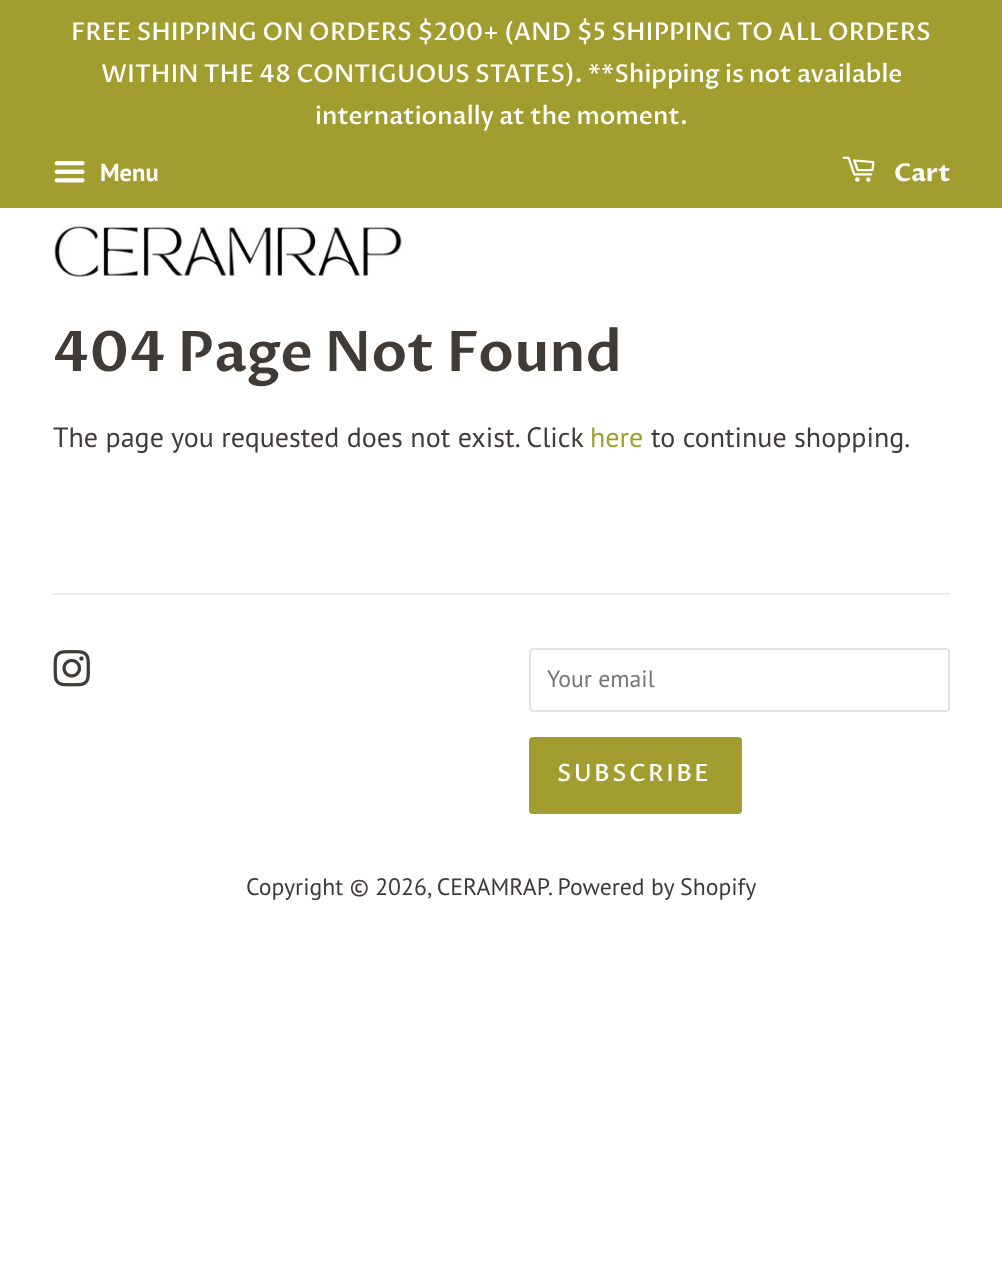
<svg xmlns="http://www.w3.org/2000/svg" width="1002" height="1280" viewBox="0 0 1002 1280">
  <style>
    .t1 { font: 500 24.5px Proza Libre; fill: #fff; }
    .t2 { font: bold 24.5px PT Sans; fill: #fff; }
    .t3 { font: bold 24.5px Proza Libre; fill: #fff; }
    .t4 { font: 600 56px Proza Libre; fill: #403b37; }
    .t5 { font: 28px PT Sans; fill: #403b37; }
    .t6 { font: 28px PT Sans; fill: #a19e2f; }
    .t7 { font: 23.75px PT Sans; fill: #757575; }
    .t8 { font: 500 23.75px Proza Libre; letter-spacing: 2.4px; fill: #fff; }
    .t9 { font: 23.75px PT Sans; fill: #403b37; }
  </style>
  <rect width="100%" height="100%" fill="#fff"/>
  <rect x="0" y="0" width="1002" height="208" fill="#a19e2f"/>
  <text x="71" y="40" class="t1">FREE SHIPPING ON ORDERS $200+ (AND $5 SHIPPING TO ALL ORDERS</text>
  <text x="101" y="82" class="t1">WITHIN THE 48 CONTIGUOUS STATES). **Shipping is not available</text>
  <text x="315" y="124" class="t1">internationally at the moment.</text>
  <image x="54" y="161" width="31" height="22" href="images/1.png"/>
  <text x="100" y="181" class="t2">Menu</text>
  <image x="842" y="156" width="33" height="26" href="images/2.png"/>
  <text x="894" y="181" class="t3">Cart</text>
  <image x="53" y="225" width="349" height="52" href="images/3.png"/>
  <text x="53" y="371" class="t4">404 Page Not Found</text>
  <text x="53" y="447" class="t5">The page you requested does not exist. Click</text>
  <text x="590" y="447" class="t6">here</text>
  <text x="651" y="447" class="t5">to continue shopping.</text>
  <rect x="53" y="593" width="897" height="2" fill="#eee"/>
  <image x="53" y="650" width="37" height="37" href="images/4.png"/>
  <rect x="530" y="649" width="419" height="62" rx="3" fill="none" stroke="#e2e2e1" stroke-width="2"/>
  <text x="547" y="687" class="t7">Your email</text>
  <rect x="529" y="737" width="213" height="77" rx="4" fill="#a19e2f"/>
  <text x="557" y="781" class="t8">SUBSCRIBE</text>
  <text x="246" y="895" class="t9">Copyright © 2026, CERAMRAP</text>
  <text x="548" y="895" class="t9">. Powered by Shopify</text>
</svg>
